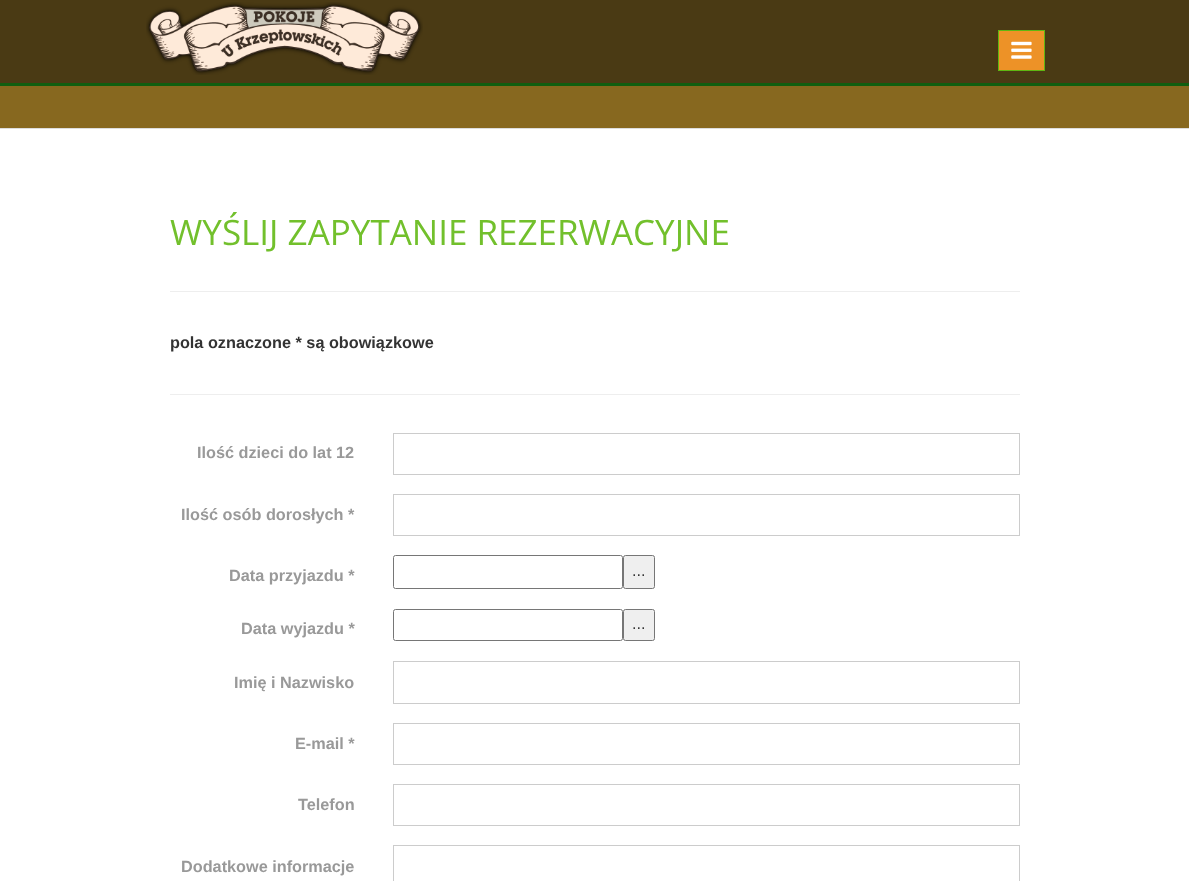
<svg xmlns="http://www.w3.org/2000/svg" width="1189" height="881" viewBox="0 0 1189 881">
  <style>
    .t1 { font: 35px Open Sans; fill: #72c02c; }
    .t2 { font: bold 16.25px Liberation Sans; fill: #333; }
    .t3 { font: bold 16.25px Liberation Sans; fill: #999; }
    .t4 { font: 16.25px Liberation Sans; fill: #333; }
  </style>
  <rect width="100%" height="100%" fill="#fff"/>
  <rect x="0" y="0" width="1189" height="83" fill="#4a3a14"/>
  <rect x="0" y="83" width="1189" height="3" fill="#105e10"/>
  <image x="146" y="2" width="277" height="73" href="images/1.png"/>
  <rect x="998.5" y="30.5" width="46" height="40" fill="#ed9227" stroke="#5fb611"/>
  <image x="1011" y="41" width="21" height="18" href="images/2.png"/>
  <rect x="0" y="86" width="1189" height="42" fill="#87681f"/>
  <rect x="0" y="128" width="1189" height="1" fill="#ddd"/>
  <text x="170" y="245" class="t1">WYŚLIJ ZAPYTANIE REZERWACYJNE</text>
  <rect x="170" y="291" width="850" height="1" fill="#eee"/>
  <text x="170" y="348" class="t2">pola oznaczone * są obowiązkowe</text>
  <rect x="170" y="394" width="850" height="1" fill="#eee"/>
  <text x="197" y="458" class="t3">Ilość dzieci do lat 12</text>
  <rect x="393.5" y="433.5" width="626" height="41" fill="none" stroke="#ccc"/>
  <text x="181" y="520" class="t3">Ilość osób dorosłych *</text>
  <rect x="393.5" y="494.5" width="626" height="41" fill="none" stroke="#ccc"/>
  <text x="229" y="581" class="t3">Data przyjazdu *</text>
  <rect x="393.5" y="555.5" width="229" height="33" rx="2" fill="none" stroke="#767676"/>
  <rect x="623.5" y="555.5" width="31" height="33" rx="2" fill="#efefef" stroke="#767676"/>
  <text x="632" y="576" class="t4">...</text>
  <text x="241" y="634" class="t3">Data wyjazdu *</text>
  <rect x="393.5" y="609.5" width="229" height="31" rx="2" fill="none" stroke="#767676"/>
  <rect x="623.5" y="609.5" width="31" height="31" rx="2" fill="#efefef" stroke="#767676"/>
  <text x="632" y="629" class="t4">...</text>
  <text x="234" y="688" class="t3">Imię i Nazwisko</text>
  <rect x="393.5" y="661.5" width="626" height="42" fill="none" stroke="#ccc"/>
  <text x="295" y="749" class="t3">E-mail *</text>
  <rect x="393.5" y="723.5" width="626" height="41" fill="none" stroke="#ccc"/>
  <text x="298" y="810" class="t3">Telefon</text>
  <rect x="393.5" y="784.5" width="626" height="41" fill="none" stroke="#ccc"/>
  <text x="181" y="872" class="t3">Dodatkowe informacje</text>
  <rect x="393.5" y="845.5" width="626" height="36" fill="none" stroke="#ccc"/>
</svg>
